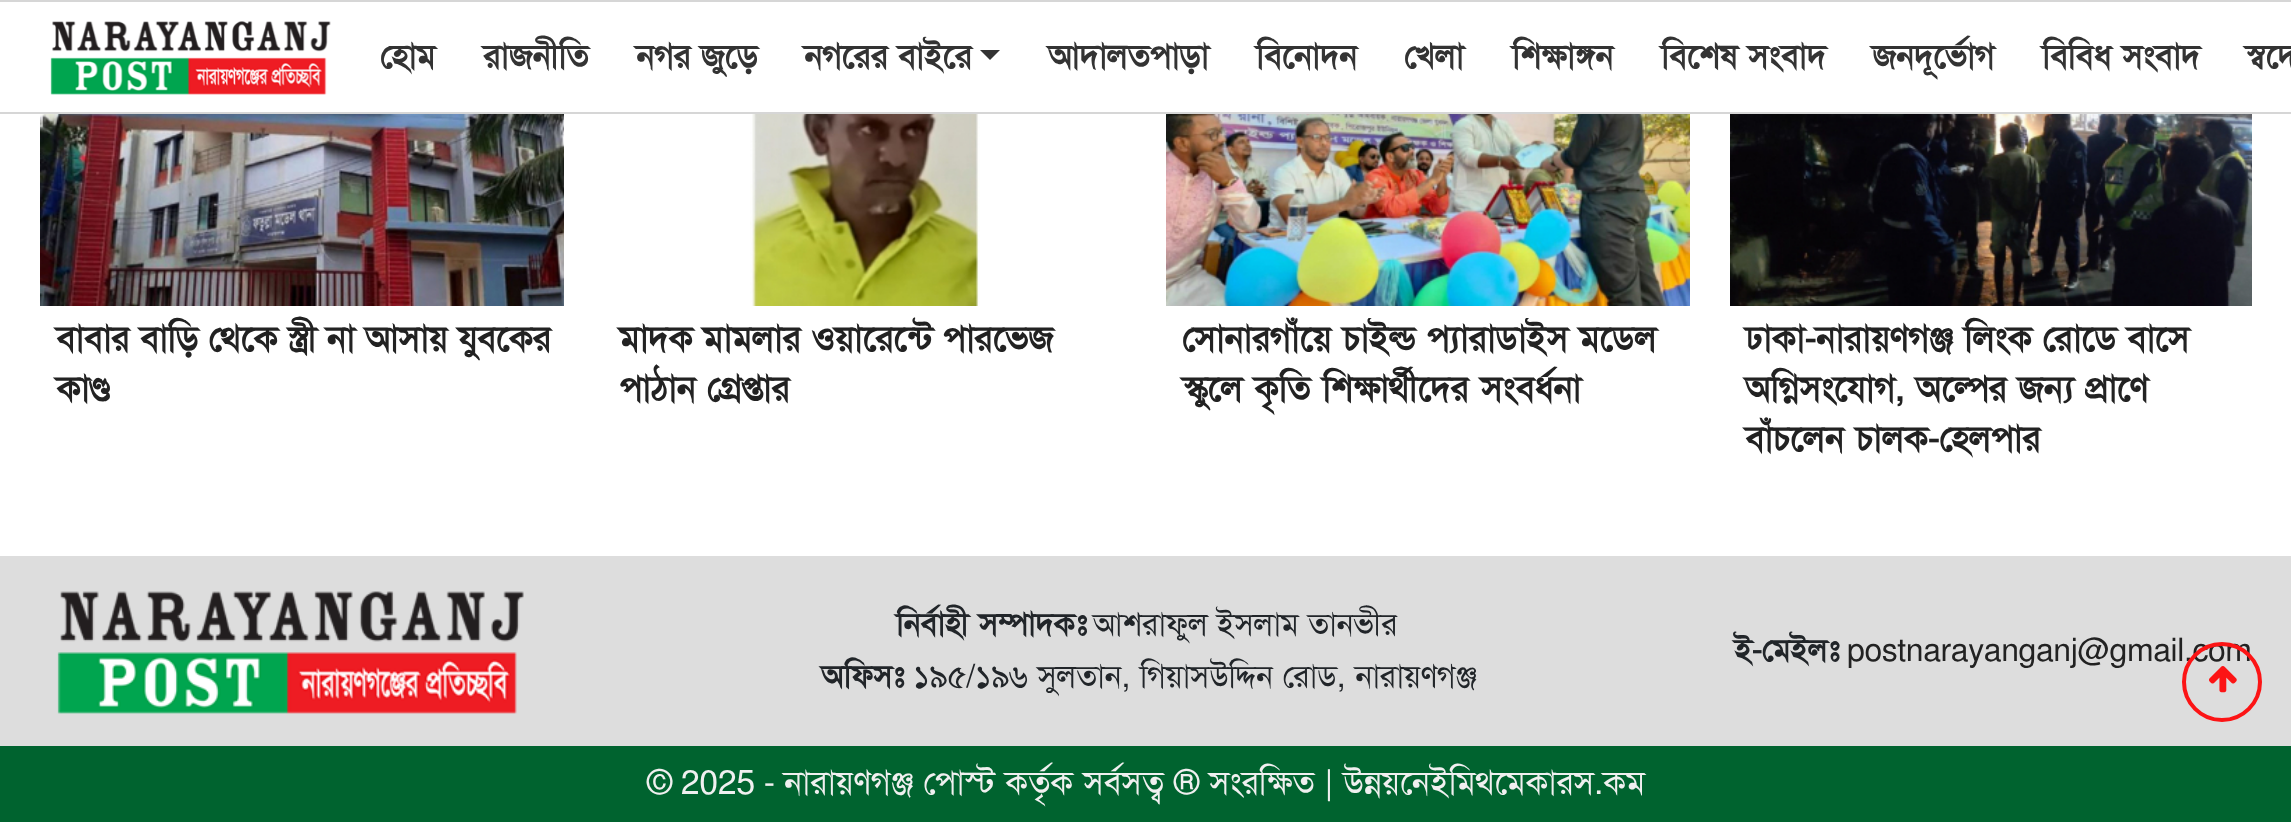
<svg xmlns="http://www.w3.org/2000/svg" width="2291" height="822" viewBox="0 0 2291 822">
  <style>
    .t1 { font: bold 34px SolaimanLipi; letter-spacing: -0.4px; fill: #333; }
    .t2 { font: bold 36px SolaimanLipi; letter-spacing: -0.4px; fill: #222; }
    .t3 { font: bold 32px SolaimanLipi; letter-spacing: -0.4px; fill: #212529; }
    .t4 { font: 32px SolaimanLipi; letter-spacing: -0.4px; fill: #212529; }
    .t5 { font: 32px SolaimanLipi; letter-spacing: -0.4px; fill: #222; }
    .t6 { font: 34px SolaimanLipi; letter-spacing: -0.4px; fill: #f0f0f0; }
  </style>
  <rect width="100%" height="100%" fill="#fff"/>
  <rect x="0" y="0" width="2291" height="2" fill="#d6d6d6"/>
  <rect x="0" y="112" width="2291" height="2" fill="#d6d6d6"/>
  <image x="50" y="21" width="281" height="74" href="images/1.png"/>
  <text x="380" y="68" class="t1">হোম</text>
  <text x="483" y="68" class="t1">রাজনীতি</text>
  <text x="636" y="68" word-spacing="1" class="t1">নগর জুড়ে</text>
  <text x="804" y="68" word-spacing="1" class="t1">নগরের বাইরে</text>
  <path d="M980 50H1000L990 60Z" fill="#333"/>
  <text x="1048" y="68" class="t1">আদালতপাড়া</text>
  <text x="1256" y="68" class="t1">বিনোদন</text>
  <text x="1404" y="68" class="t1">খেলা</text>
  <text x="1512" y="68" class="t1">শিক্ষাঙ্গন</text>
  <text x="1661" y="68" word-spacing="1.5" class="t1">বিশেষ সংবাদ</text>
  <text x="1872" y="68" class="t1">জনদূর্ভোগ</text>
  <text x="2042" y="68" word-spacing="2" class="t1">বিবিধ সংবাদ</text>
  <text x="2245" y="68" class="t1">স্বদে</text>
  <image x="40" y="114" width="524" height="192" href="images/2.png"/>
  <text x="56" y="351" word-spacing="1" class="t2">বাবার বাড়ি থেকে স্ত্রী না আসায় যুবকের</text>
  <text x="56" y="401" class="t2">কাণ্ড</text>
  <image x="750" y="114" width="230" height="192" href="images/3.png"/>
  <text x="619" y="351" word-spacing="1" class="t2">মাদক মামলার ওয়ারেন্টে পারভেজ</text>
  <text x="619" y="401" word-spacing="2" class="t2">পাঠান গ্রেপ্তার</text>
  <image x="1166" y="114" width="524" height="192" href="images/4.png"/>
  <text x="1182" y="351" word-spacing="2" class="t2">সোনারগাঁয়ে চাইল্ড প্যারাডাইস মডেল</text>
  <text x="1182" y="401" word-spacing="2.5" class="t2">স্কুলে কৃতি শিক্ষার্থীদের সংবর্ধনা</text>
  <image x="1730" y="114" width="522" height="192" href="images/5.png"/>
  <text x="1745" y="351" word-spacing="1.5" class="t2">ঢাকা-নারায়ণগঞ্জ লিংক রোডে বাসে</text>
  <text x="1745" y="401" word-spacing="2" class="t2">অগ্নিসংযোগ, অল্পের জন্য প্রাণে</text>
  <text x="1745" y="451" word-spacing="2.5" class="t2">বাঁচলেন চালক-হেলপার</text>
  <rect x="0" y="556" width="2291" height="190" fill="#ddd"/>
  <image x="57" y="591" width="467" height="123" href="images/6.png"/>
  <text x="896" y="635" word-spacing="2" class="t3">নির্বাহী সম্পাদকঃ</text>
  <text x="1093" y="635" word-spacing="1" class="t4">আশরাফুল ইসলাম তানভীর</text>
  <text x="821" y="687" class="t3">অফিসঃ</text>
  <text x="913" y="687" word-spacing="1.5" class="t4">১৯৫/১৯৬ সুলতান, গিয়াসউদ্দিন রোড, নারায়ণগঞ্জ</text>
  <text x="1734" y="661" class="t3">ই-মেইলঃ</text>
  <text x="1847" y="661" class="t5">postnarayanganj@gmail.com</text>
  <rect x="0" y="746" width="2291" height="76" fill="#00632f"/>
  <text x="647" y="794" class="t6">© 2025 -</text>
  <text x="784" y="794" word-spacing="1.25" class="t6">নারায়ণগঞ্জ পোস্ট কর্তৃক সর্বসত্ব ® সংরক্ষিত | উন্নয়নে</text>
  <text x="1430" y="794" class="t6">ইমিথমেকারস.কম</text>
  <circle cx="2222" cy="682" r="38" fill="none" stroke="#fc1415" stroke-width="4"/>
  <image x="2209" y="666" width="28" height="27" href="images/7.png"/>
</svg>
